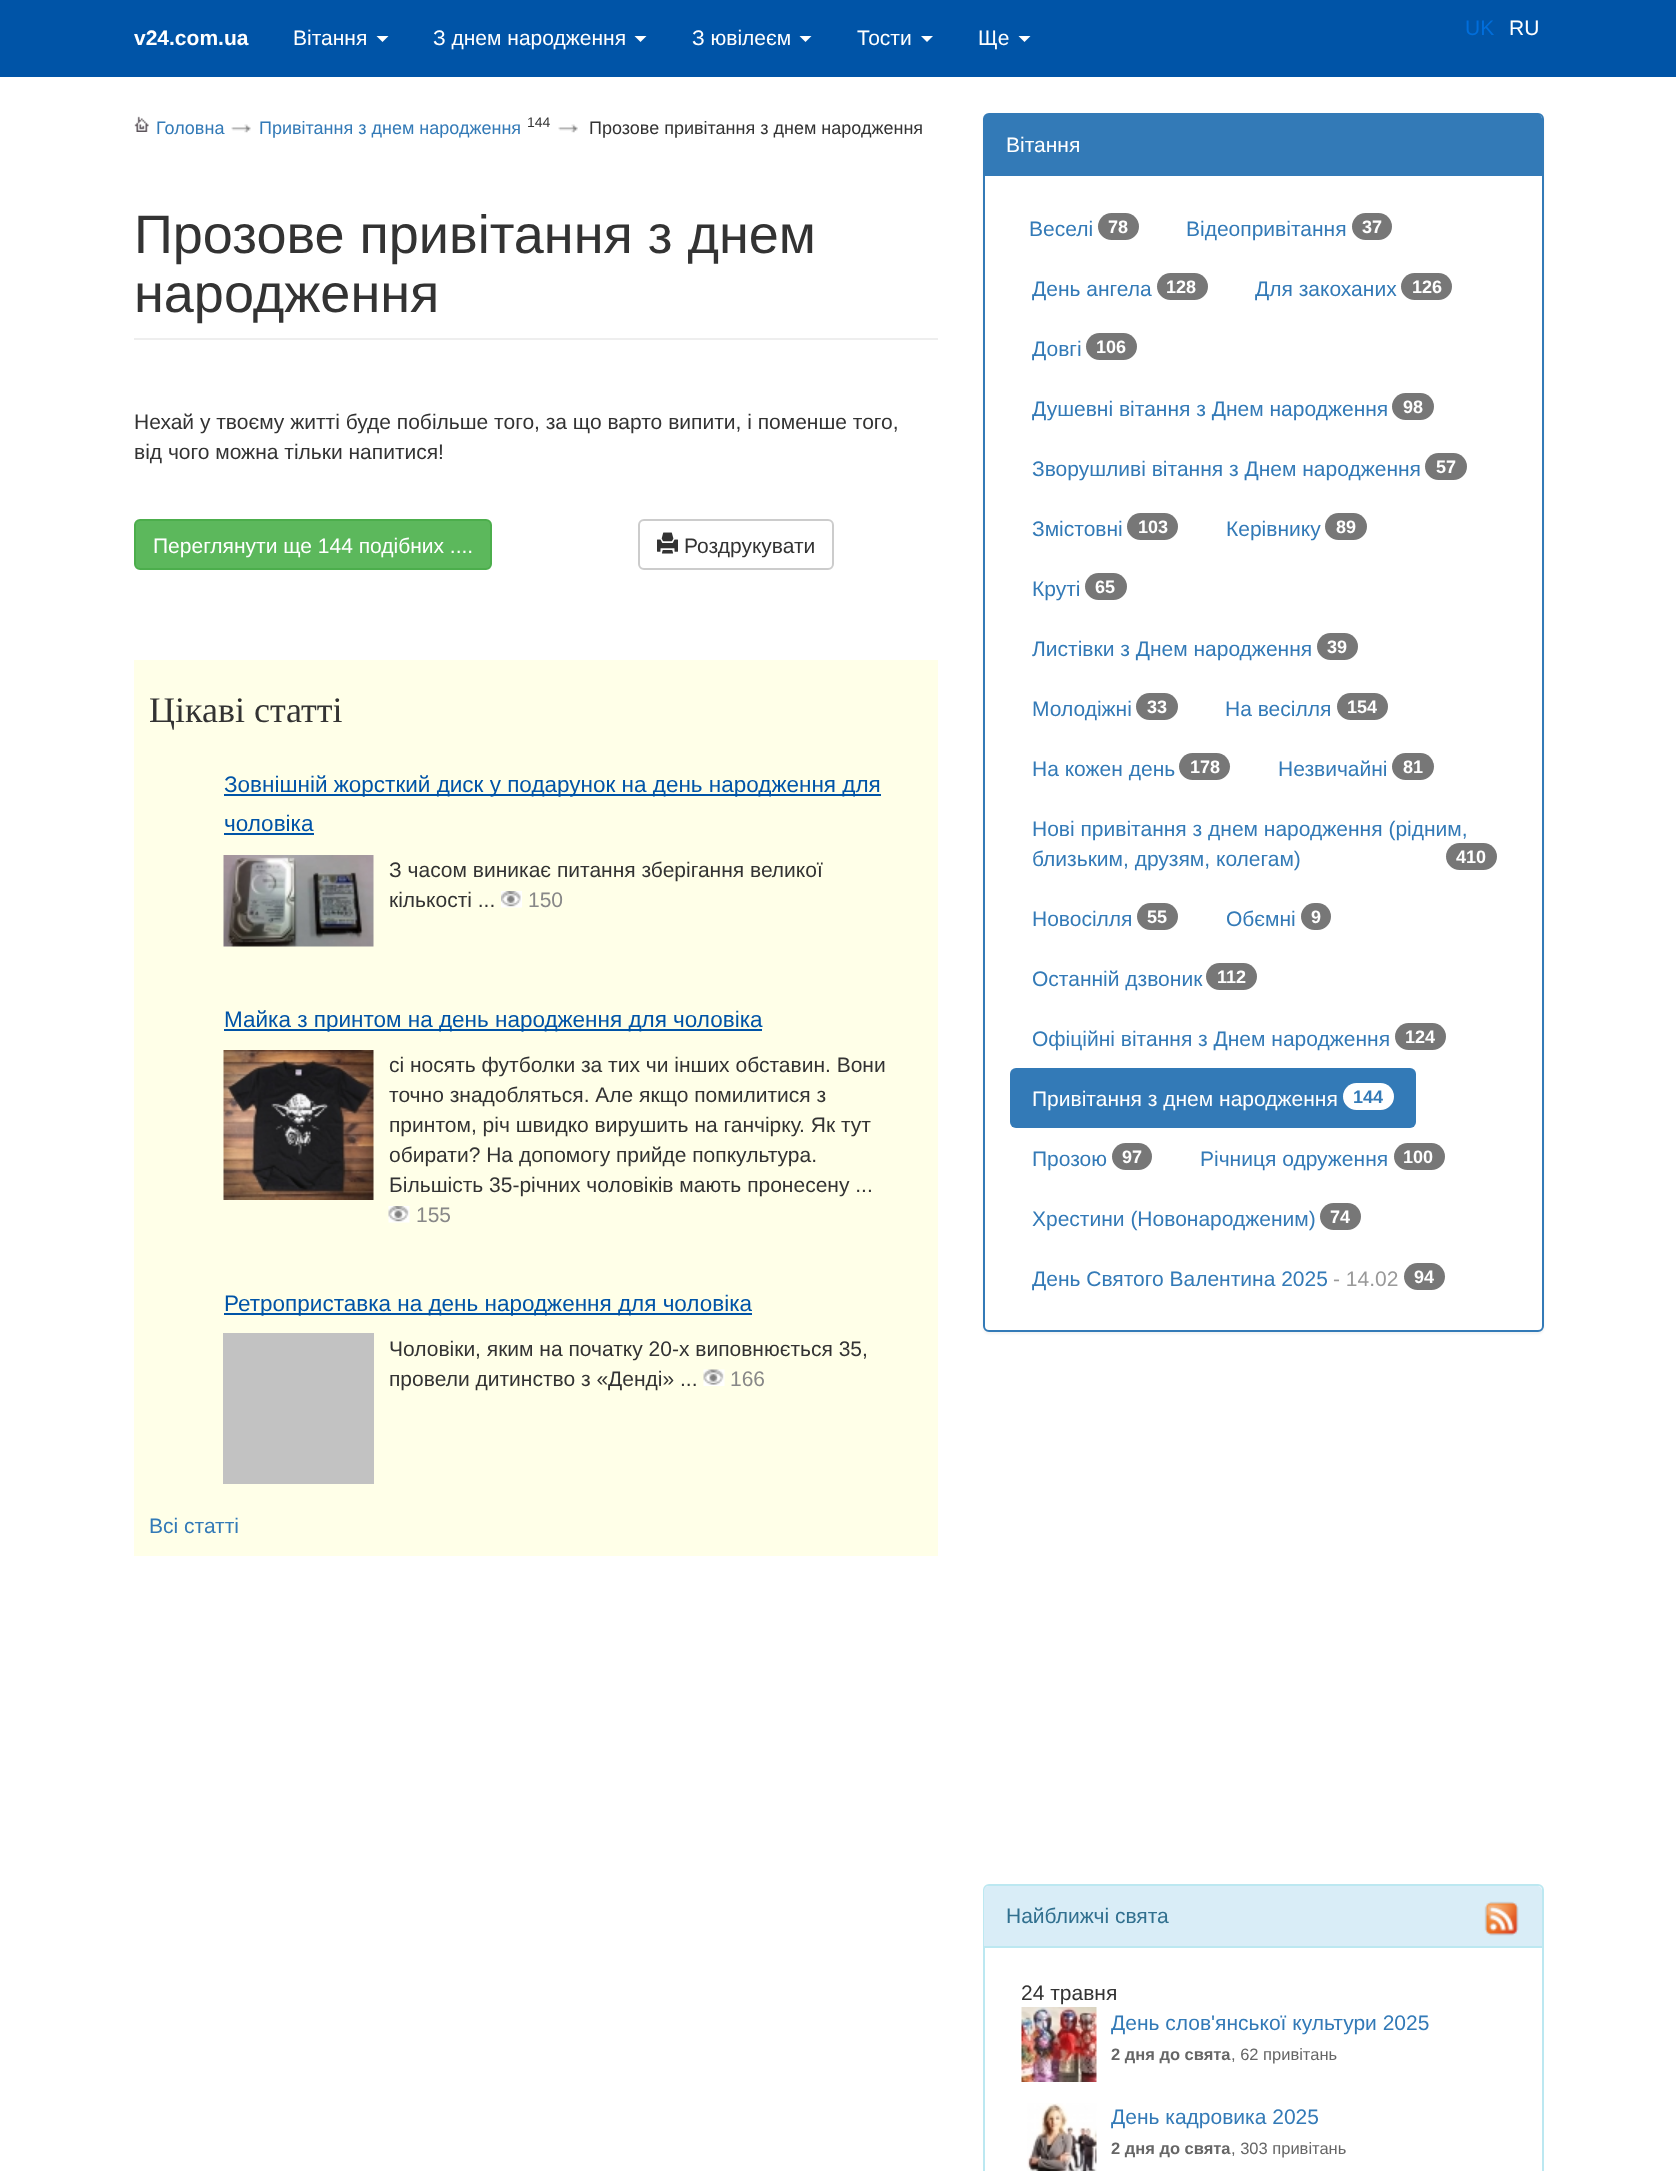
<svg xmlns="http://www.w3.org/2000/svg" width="1676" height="2171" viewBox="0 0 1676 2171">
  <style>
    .t1 { font: bold 21px Liberation Sans; fill: #fff; }
    .t2 { font: 21px Liberation Sans; fill: #fff; }
    .t3 { font: 21px Liberation Sans; fill: #006edb; }
    .t4 { font: 18px Liberation Sans; fill: #337ab7; }
    .t5 { font: 14px Liberation Sans; fill: #333; }
    .t6 { font: 18px Liberation Sans; fill: #333; }
    .t7 { font: 54px Liberation Sans; fill: #333; }
    .t8 { font: 21px Liberation Sans; fill: #333; }
    .t9 { font: 36px Liberation Serif; fill: #333; }
    .t10 { font: 22.5px Liberation Sans; fill: #0054a7; }
    .t11 { font: 21px Liberation Sans; fill: #888; }
    .t12 { font: 21px Liberation Sans; fill: #337ab7; }
    .t13 { font: bold 18px Liberation Sans; fill: #fff; }
    .t14 { font: bold 18px Liberation Sans; fill: #337ab7; }
    .t15 { font: 21px Liberation Sans; fill: #999; }
    .t16 { font: 21px Liberation Sans; fill: #31708f; }
    .t17 { font: bold 16.5px Liberation Sans; fill: #666; }
    .t18 { font: 16.5px Liberation Sans; fill: #666; }
  </style>
  <rect width="100%" height="100%" fill="#fff"/>
  <rect x="0" y="0" width="1676" height="77" fill="#0054a7"/>
  <text x="134" y="45" class="t1">v24.com.ua</text>
  <text x="293" y="45" class="t2">Вітання</text>
  <path d="M376.5 36H388.5L382.5 42Z" fill="#fff"/>
  <text x="433" y="45" class="t2">З днем народження</text>
  <path d="M634.5 36H646.5L640.5 42Z" fill="#fff"/>
  <text x="692" y="45" class="t2">З ювілеєм</text>
  <path d="M799.5 36H811.5L805.5 42Z" fill="#fff"/>
  <text x="857" y="45" class="t2">Тости</text>
  <path d="M921 36H933L927 42Z" fill="#fff"/>
  <text x="978" y="45" class="t2">Ще</text>
  <path d="M1018.5 36H1030.5L1024.5 42Z" fill="#fff"/>
  <text x="1465" y="35" class="t3">UK</text>
  <text x="1509" y="35" class="t2">RU</text>
  <image x="134" y="116" width="15" height="16" href="images/1.png"/>
  <text x="156" y="134" class="t4">Головна</text>
  <image x="231" y="124" width="20" height="9" href="images/2.png"/>
  <text x="259" y="134" class="t4">Привітання з днем народження</text>
  <text x="527" y="127" class="t5">144</text>
  <image x="558" y="124" width="20" height="9" href="images/3.png"/>
  <text x="589" y="134" class="t6">Прозове привітання з днем народження</text>
  <rect x="134" y="338" width="804" height="2" fill="#eee"/>
  <text x="134" y="253" class="t7">Прозове привітання з днем</text>
  <text x="134" y="312" class="t7">народження</text>
  <text x="134" y="429" class="t8">Нехай у твоєму житті буде побільше того, за що варто випити, і поменше того,</text>
  <text x="134" y="459" class="t8">від чого можна тільки напитися!</text>
  <rect x="135" y="520" width="356" height="49" rx="5" fill="#5cb85c" stroke="#4cae4c" stroke-width="2"/>
  <text x="153" y="553" class="t2">Переглянути ще 144 подібних ....</text>
  <rect x="639" y="520" width="194" height="49" rx="5" fill="none" stroke="#ccc" stroke-width="2"/>
  <image x="657" y="532" width="21" height="22" href="images/4.png"/>
  <text x="684" y="553" class="t8">Роздрукувати</text>
  <rect x="134" y="660" width="804" height="896" fill="#ffffe8"/>
  <text x="149" y="722" class="t9">Цікаві статті</text>
  <rect x="224" y="794" width="657" height="2" fill="#0054a7"/>
  <text x="224" y="792" class="t10">Зовнішній жорсткий диск у подарунок на день народження для</text>
  <text x="224" y="831" class="t10">чоловіка</text>
  <rect x="224" y="833" width="90" height="2" fill="#0054a7"/>
  <image x="223" y="855" width="151" height="92" href="images/5.png"/>
  <text x="389" y="877" class="t8">З часом виникає питання зберігання великої</text>
  <text x="389" y="907" class="t8">кількості ...</text>
  <image x="501" y="891" width="21" height="17" href="images/6.png"/>
  <text x="528" y="907" class="t11">150</text>
  <rect x="224" y="1029" width="538" height="2" fill="#0054a7"/>
  <text x="224" y="1027" class="t10">Майка з принтом на день народження для чоловіка</text>
  <image x="223" y="1050" width="151" height="150" href="images/7.png"/>
  <text x="389" y="1072" class="t8">сі носять футболки за тих чи інших обставин. Вони</text>
  <text x="389" y="1102" class="t8">точно знадобляться. Але якщо помилитися з</text>
  <text x="389" y="1132" class="t8">принтом, річ швидко вирушить на ганчірку. Як тут</text>
  <text x="389" y="1162" class="t8">обирати? На допомогу прийде попкультура.</text>
  <text x="389" y="1192" class="t8">Більшість 35-річних чоловіків мають пронесену ...</text>
  <image x="388" y="1206" width="22" height="17" href="images/8.png"/>
  <text x="416" y="1222" class="t11">155</text>
  <rect x="224" y="1313" width="528" height="2" fill="#0054a7"/>
  <text x="224" y="1311" class="t10">Ретроприставка на день народження для чоловіка</text>
  <rect x="223" y="1333" width="151" height="151" fill="#c2c2c2"/>
  <text x="389" y="1356" class="t8">Чоловіки, яким на початку 20-х виповнюється 35,</text>
  <text x="389" y="1386" class="t8">провели дитинство з «Денді» ...</text>
  <image x="703" y="1369" width="22" height="17" href="images/9.png"/>
  <text x="730" y="1386" class="t11">166</text>
  <text x="149" y="1533" class="t12">Всі статті</text>
  <rect x="983" y="114" width="561" height="1220" rx="6" fill="#0000000d" filter="blur(1px)"/>
  <rect x="984" y="114" width="559" height="1217" rx="5" fill="#fff" stroke="#337ab7" stroke-width="2"/>
  <path d="M989 114H1537C1540 114 1542 116 1542 119V176H984V119C984 116 986 114 989 114Z" fill="#337ab7"/>
  <text x="1006" y="152" class="t2">Вітання</text>
  <text x="1029" y="236" class="t12">Веселі</text>
  <rect x="1098" y="213" width="41" height="27" rx="13.5" fill="#777"/>
  <text x="1108" y="233" class="t13">78</text>
  <text x="1186" y="236" class="t12">Відеопривітання</text>
  <rect x="1352" y="213" width="40" height="27" rx="13.5" fill="#777"/>
  <text x="1362" y="233" class="t13">37</text>
  <text x="1032" y="296" class="t12">День ангела</text>
  <rect x="1157" y="273" width="51" height="27" rx="13.5" fill="#777"/>
  <text x="1166" y="293" class="t13">128</text>
  <text x="1255" y="296" class="t12">Для закоханих</text>
  <rect x="1401" y="273" width="51" height="27" rx="13.5" fill="#777"/>
  <text x="1412" y="293" class="t13">126</text>
  <text x="1032" y="356" class="t12">Довгі</text>
  <rect x="1086" y="333" width="51" height="27" rx="13.5" fill="#777"/>
  <text x="1096" y="353" class="t13">106</text>
  <text x="1032" y="416" class="t12">Душевні вітання з Днем народження</text>
  <rect x="1392" y="393" width="42" height="27" rx="13.5" fill="#777"/>
  <text x="1403" y="413" class="t13">98</text>
  <text x="1032" y="476" class="t12">Зворушливі вітання з Днем народження</text>
  <rect x="1425" y="453" width="42" height="27" rx="13.5" fill="#777"/>
  <text x="1436" y="473" class="t13">57</text>
  <text x="1032" y="536" class="t12">Змістовні</text>
  <rect x="1127" y="513" width="51" height="27" rx="13.5" fill="#777"/>
  <text x="1138" y="533" class="t13">103</text>
  <text x="1226" y="536" class="t12">Керівнику</text>
  <rect x="1325" y="513" width="42" height="27" rx="13.5" fill="#777"/>
  <text x="1336" y="533" class="t13">89</text>
  <text x="1032" y="596" class="t12">Круті</text>
  <rect x="1085" y="573" width="42" height="27" rx="13.5" fill="#777"/>
  <text x="1095" y="593" class="t13">65</text>
  <text x="1032" y="656" class="t12">Листівки з Днем народження</text>
  <rect x="1317" y="633" width="41" height="27" rx="13.5" fill="#777"/>
  <text x="1327" y="653" class="t13">39</text>
  <text x="1032" y="716" class="t12">Молодіжні</text>
  <rect x="1136" y="693" width="42" height="27" rx="13.5" fill="#777"/>
  <text x="1147" y="713" class="t13">33</text>
  <text x="1225" y="716" class="t12">На весілля</text>
  <rect x="1337" y="693" width="51" height="27" rx="13.5" fill="#777"/>
  <text x="1347" y="713" class="t13">154</text>
  <text x="1032" y="776" class="t12">На кожен день</text>
  <rect x="1179" y="753" width="51" height="27" rx="13.5" fill="#777"/>
  <text x="1190" y="773" class="t13">178</text>
  <text x="1278" y="776" class="t12">Незвичайні</text>
  <rect x="1392" y="753" width="42" height="27" rx="13.5" fill="#777"/>
  <text x="1403" y="773" class="t13">81</text>
  <text x="1032" y="836" class="t12">Нові привітання з днем народження (рідним,</text>
  <text x="1032" y="866" class="t12">близьким, друзям, колегам)</text>
  <rect x="1446" y="843" width="51" height="27" rx="13.5" fill="#777"/>
  <text x="1456" y="863" class="t13">410</text>
  <text x="1032" y="926" class="t12">Новосілля</text>
  <rect x="1137" y="903" width="41" height="27" rx="13.5" fill="#777"/>
  <text x="1147" y="923" class="t13">55</text>
  <text x="1226" y="926" class="t12">Обємні</text>
  <rect x="1301" y="903" width="30" height="27" rx="13.5" fill="#777"/>
  <text x="1311" y="923" class="t13">9</text>
  <text x="1032" y="986" class="t12">Останній дзвоник</text>
  <rect x="1206" y="963" width="51" height="27" rx="13.5" fill="#777"/>
  <text x="1217" y="983" class="t13">112</text>
  <text x="1032" y="1046" class="t12">Офіційні вітання з Днем народження</text>
  <rect x="1395" y="1023" width="51" height="27" rx="13.5" fill="#777"/>
  <text x="1405" y="1043" class="t13">124</text>
  <rect x="1010" y="1068" width="406" height="60" rx="6" fill="#337ab7"/>
  <text x="1032" y="1106" class="t2">Привітання з днем народження</text>
  <rect x="1343" y="1083" width="51" height="27" rx="13.5" fill="#fff"/>
  <text x="1353" y="1103" class="t14">144</text>
  <text x="1032" y="1166" class="t12">Прозою</text>
  <rect x="1112" y="1143" width="40" height="27" rx="13.5" fill="#777"/>
  <text x="1122" y="1163" class="t13">97</text>
  <text x="1200" y="1166" class="t12">Річниця одруження</text>
  <rect x="1394" y="1143" width="51" height="27" rx="13.5" fill="#777"/>
  <text x="1403" y="1163" class="t13">100</text>
  <text x="1032" y="1226" class="t12">Хрестини (Новонародженим)</text>
  <rect x="1320" y="1203" width="41" height="27" rx="13.5" fill="#777"/>
  <text x="1330" y="1223" class="t13">74</text>
  <text x="1032" y="1286" class="t12">День Святого Валентина 2025</text>
  <text x="1333" y="1286" class="t15">- 14.02</text>
  <rect x="1404" y="1263" width="41" height="27" rx="13.5" fill="#777"/>
  <text x="1414" y="1283" class="t13">94</text>
  <rect x="984" y="1885" width="559" height="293" rx="5" fill="none" stroke="#bce8f1" stroke-width="2"/>
  <path d="M989 1886H1537C1540 1886 1542 1888 1542 1891V1947H984V1891C984 1888 986 1886 989 1886Z" fill="#d9edf7"/>
  <rect x="984" y="1946" width="558" height="2" fill="#bce8f1"/>
  <text x="1006" y="1923" class="t16">Найближчі свята</text>
  <image x="1484" y="1901" width="35" height="35" href="images/10.png"/>
  <text x="1021" y="2000" class="t8">24 травня</text>
  <image x="1021" y="2007" width="76" height="75" href="images/11.png"/>
  <text x="1111" y="2030" class="t12">День слов'янської культури 2025</text>
  <text x="1111" y="2060" class="t17">2 дня до свята</text>
  <text x="1231" y="2060" class="t18">, 62 привітань</text>
  <image x="1027" y="2103" width="70" height="68" href="images/12.png"/>
  <text x="1111" y="2124" class="t12">День кадровика 2025</text>
  <text x="1111" y="2154" class="t17">2 дня до свята</text>
  <text x="1231" y="2154" class="t18">, 303 привітань</text>
</svg>
